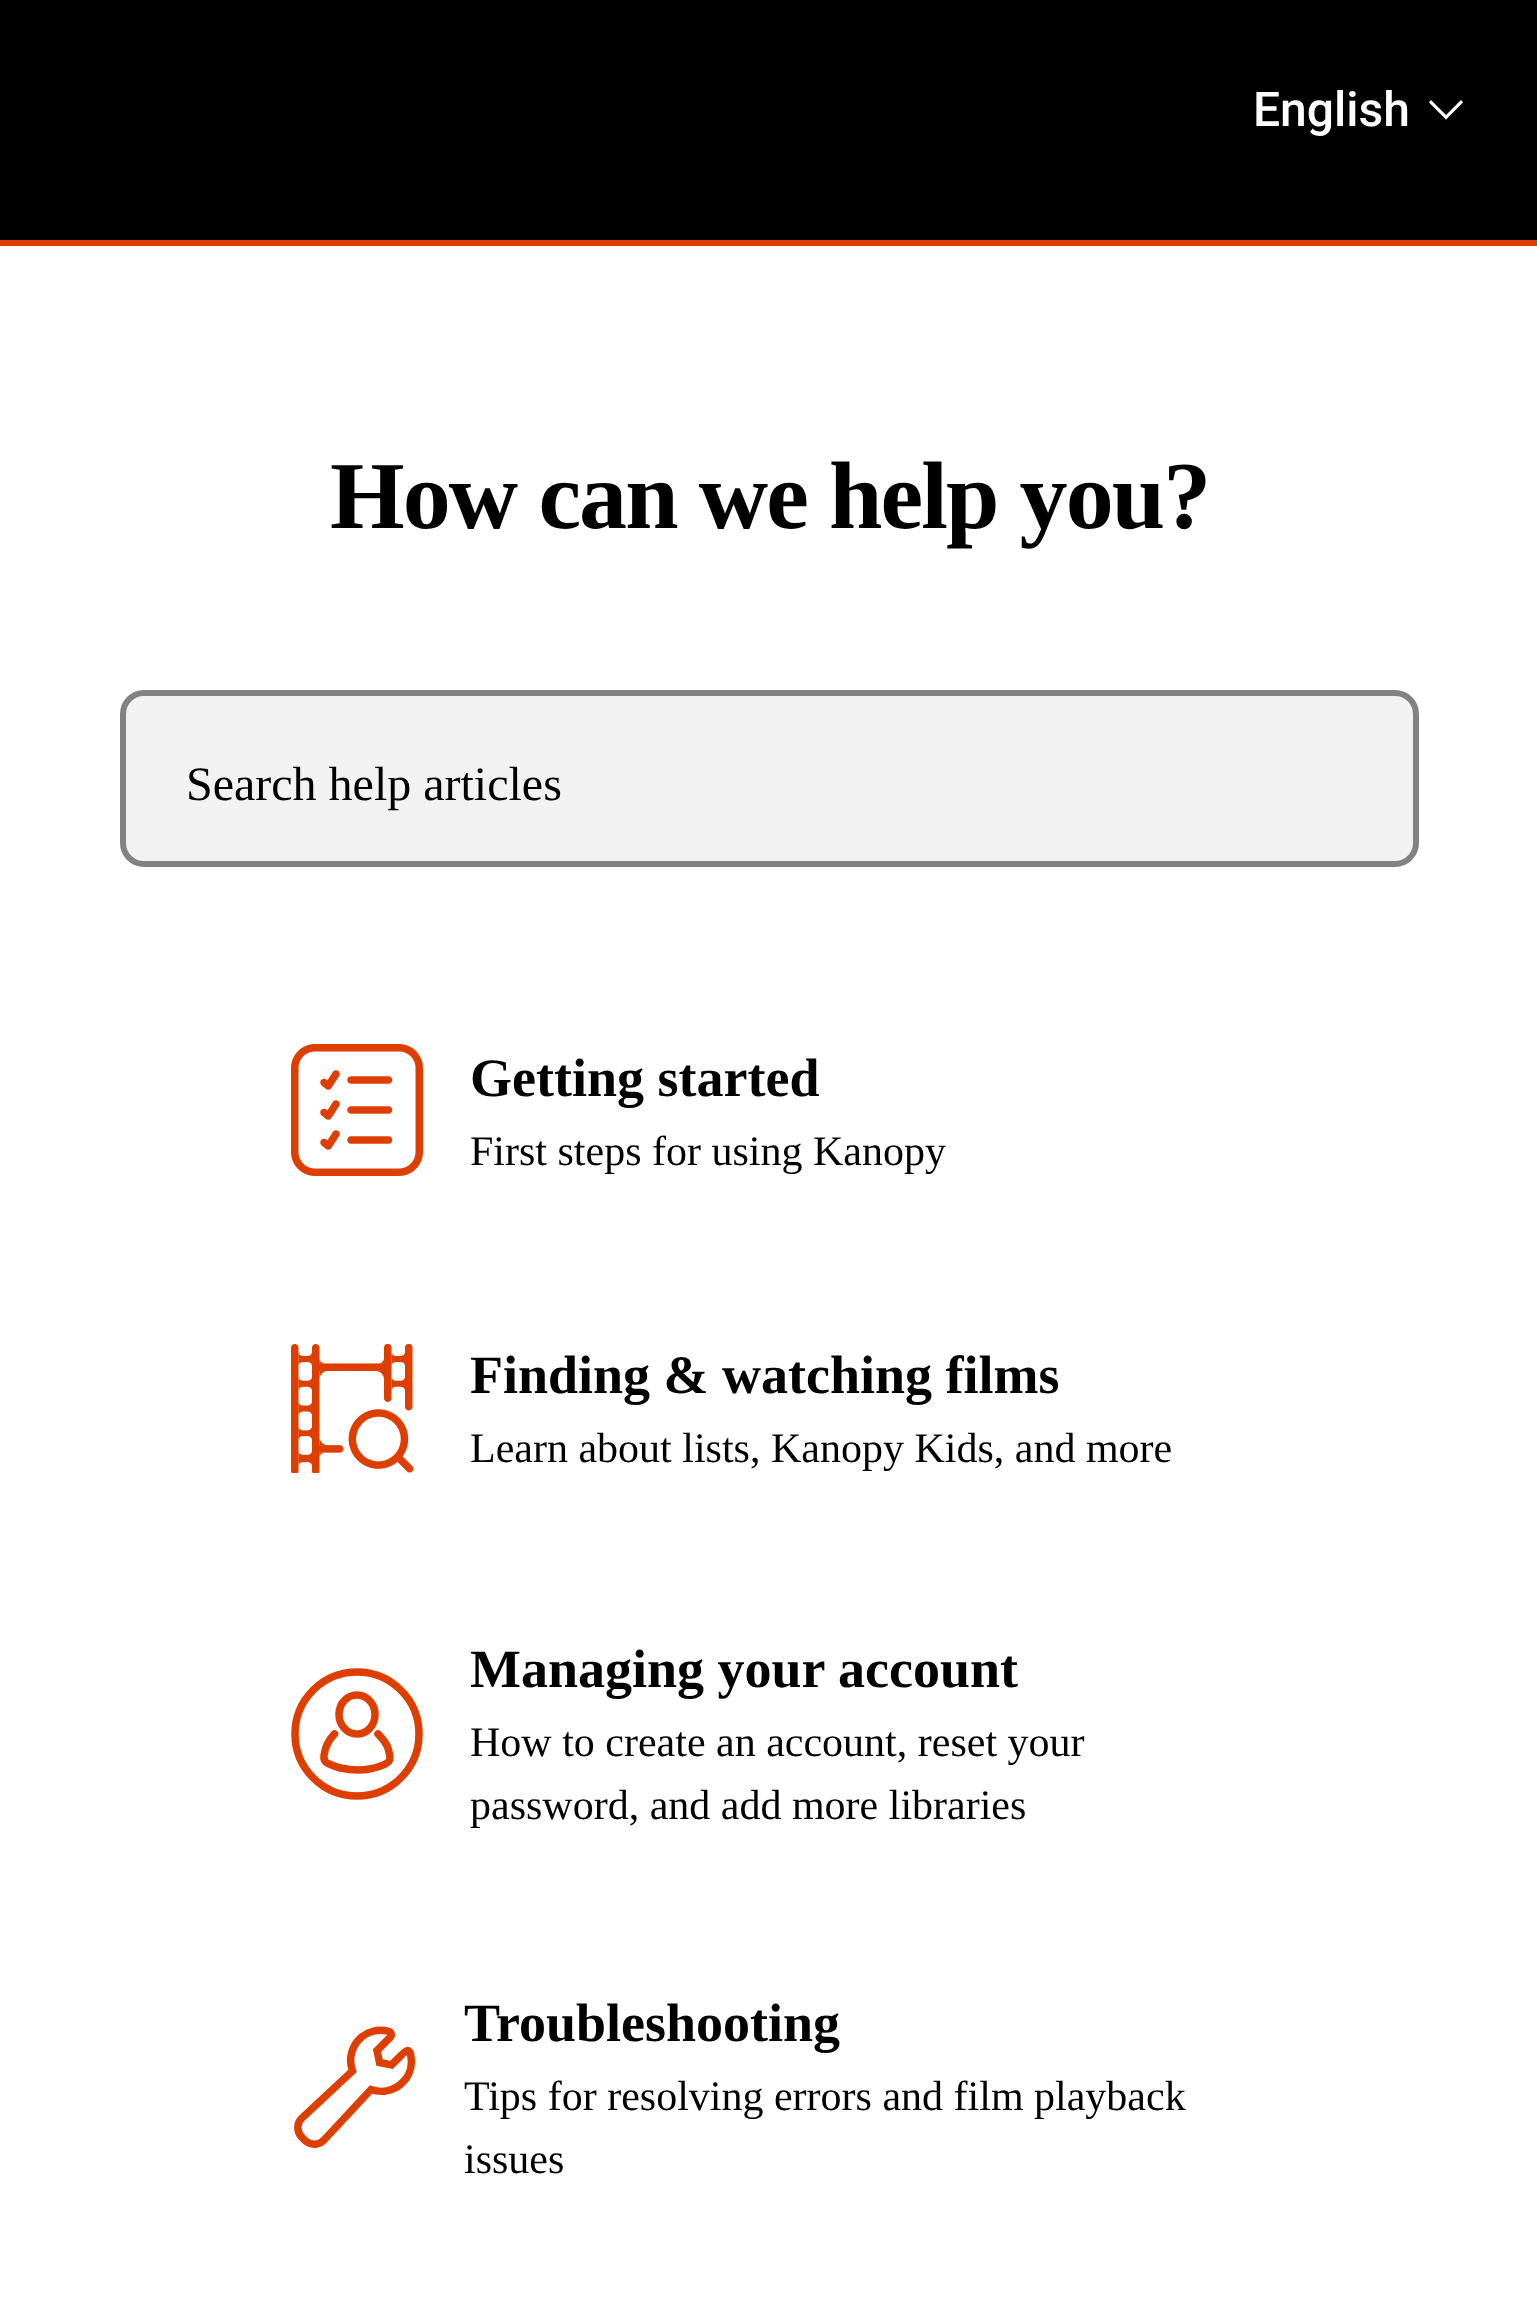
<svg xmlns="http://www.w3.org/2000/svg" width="1537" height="2298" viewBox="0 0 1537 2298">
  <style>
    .t1 { font: 500 48px Roboto; fill: #fff; }
    .t2 { font: bold 96px Liberation Serif; letter-spacing: -1.9px; fill: #000; }
    .t3 { font: 48px Liberation Serif; fill: #000; }
    .t4 { font: bold 54px Liberation Serif; fill: #000; }
    .t5 { font: 42px Liberation Serif; fill: #000; }
  </style>
  <rect width="100%" height="100%" fill="#fff"/>
  <rect x="0" y="0" width="1537" height="240" fill="#000"/>
  <rect x="0" y="240" width="1537" height="6" fill="#de3f00"/>
  <text x="1253" y="126" class="t1">English</text>
  <path d="M1461 100L1463 102.5L1446 119.5L1444 117Z" fill="#fff"/>
  <path d="M1431 100L1448 117L1446 119.5L1429 102.5Z" fill="#fff"/>
  <text x="330" y="528" class="t2">How can we help you?</text>
  <rect x="123" y="693" width="1293" height="171" rx="21" fill="#f2f2f2" stroke="#828282" stroke-width="6"/>
  <text x="186" y="800" class="t3">Search help articles</text>
  <image x="291" y="1044" width="132" height="132" href="images/1.png"/>
  <text x="470" y="1096" class="t4">Getting started</text>
  <text x="470" y="1165" class="t5">First steps for using Kanopy</text>
  <image x="291" y="1344" width="123" height="129" href="images/2.png"/>
  <text x="470" y="1393" class="t4">Finding &amp; watching films</text>
  <text x="470" y="1462" class="t5">Learn about lists, Kanopy Kids, and more</text>
  <circle cx="357" cy="1734" r="62" fill="none" stroke="#de3f00" stroke-width="7.5"/>
  <path d="M334.5 1734C329 1739.5 325 1748 324 1755.5C323.5 1759 324.5 1762 328 1763.5C332 1765 336 1767 340.5 1768C354 1771 367.5 1771 380.5 1766C391.5 1762 391 1759.5 388.5 1750C387.5 1744.5 382 1738 378 1734" fill="none" stroke="#de3f00" stroke-width="7.5" stroke-linecap="round"/>
  <path d="M357 1734C367 1734 375 1725.5 375 1714.5C375 1704 367 1695 357 1695C347 1695 339 1703.5 339 1714.5C339 1725 347 1734 357 1734Z" fill="none" stroke="#de3f00" stroke-width="7.5" stroke-linecap="round"/>
  <text x="470" y="1687" class="t4">Managing your account</text>
  <text x="470" y="1756" class="t5">How to create an account, reset your</text>
  <text x="470" y="1819" class="t5">password, and add more libraries</text>
  <path d="M359.5 2039C367.5 2031 379 2028.5 389 2031.5C391.5 2032.5 392 2035.5 390.5 2037L377 2050.5L379.5 2062.5L391.5 2065L400.5 2056C405.5 2051 409.5 2046.5 411 2057C414.5 2079.5 392.5 2097 371 2089.5L324 2140C319 2145.5 310.5 2145.5 305 2140.5L301.5 2137C296.5 2131.5 296.5 2123 302 2118L352.5 2071C348.5 2060 351 2047.5 359.5 2039Z" fill="none" stroke="#de3f00" stroke-width="7.5"/>
  <text x="464" y="2041" class="t4">Troubleshooting</text>
  <text x="464" y="2110" class="t5">Tips for resolving errors and film playback</text>
  <text x="464" y="2173" class="t5">issues</text>
</svg>
